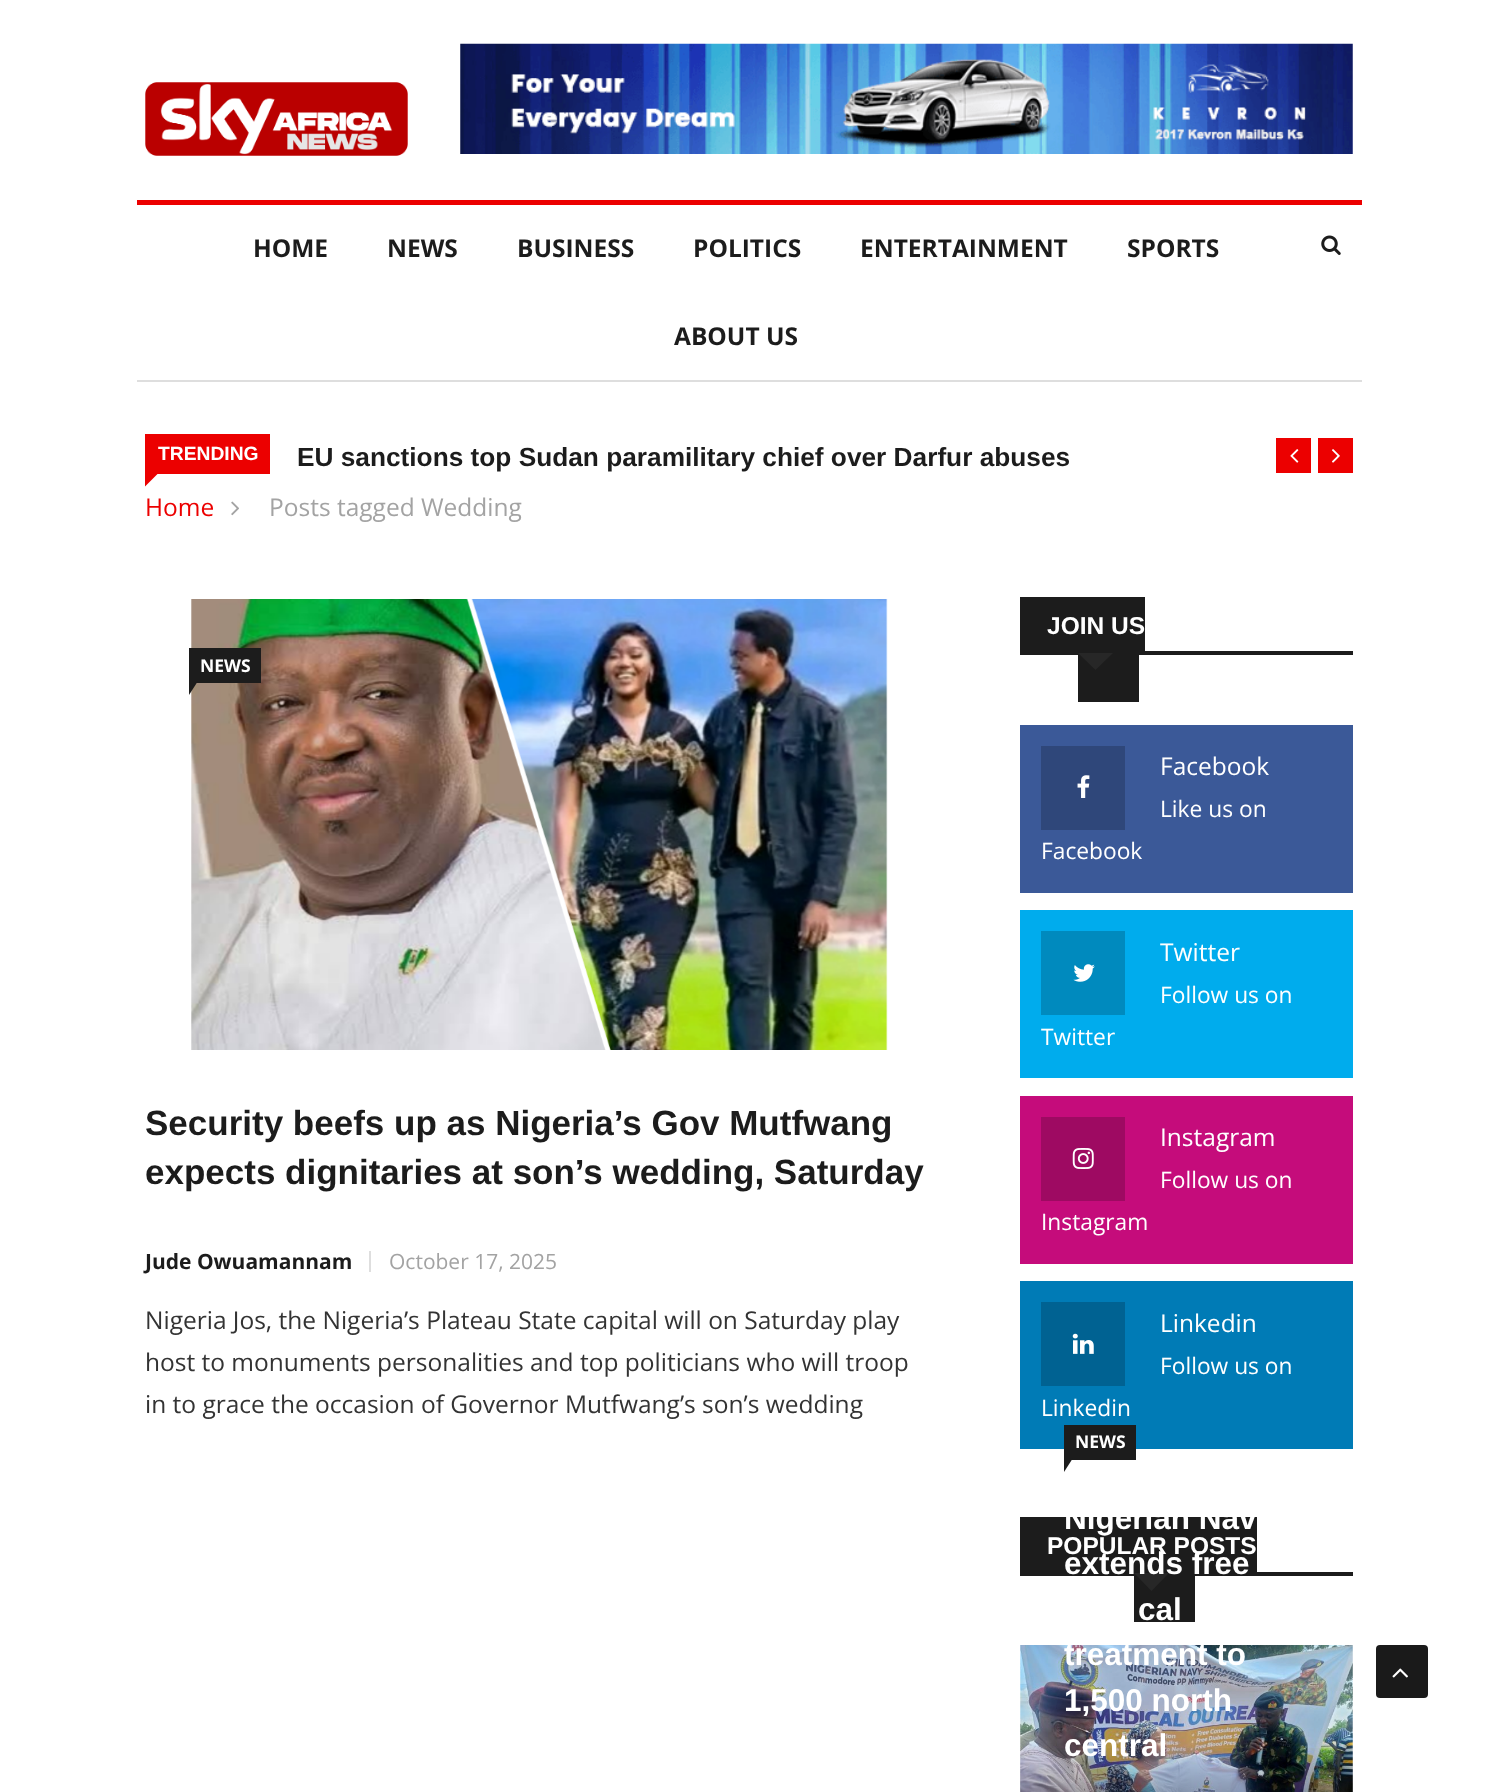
<svg xmlns="http://www.w3.org/2000/svg" width="1498" height="1792" viewBox="0 0 1498 1792">
  <style>
    .t1 { font: bold 24.5px Open Sans; fill: #1c1c1c; }
    .t2 { font: bold 19.25px Liberation Sans; fill: #fff; }
    .t3 { font: bold 26.25px Liberation Sans; fill: #1c1c1c; }
    .t4 { font: 24.5px Open Sans; fill: #ec0000; }
    .t5 { font: 24.5px Open Sans; fill: #a3a3a3; }
    .t6 { font: bold 17.5px Open Sans; fill: #fff; }
    .t7 { font: bold 35px Liberation Sans; fill: #1c1c1c; }
    .t8 { font: bold 21px Open Sans; fill: #1c1c1c; }
    .t9 { font: 21px Open Sans; fill: #a3a3a3; }
    .t10 { font: 24.5px Open Sans; fill: #333; }
    .t11 { font: bold 24.5px Liberation Sans; fill: #fff; }
    .t12 { font: 24.5px Open Sans; fill: #fff; }
    .t13 { font: 22.75px Open Sans; fill: #fff; }
    .t14 { font: bold 31.5px Liberation Sans; fill: #fff; }
  </style>
  <defs>
    <linearGradient id="g1" gradientUnits="userSpaceOnUse" x1="1187" y1="1633" x2="1187" y2="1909"><stop offset="0.4" stop-color="#000" stop-opacity="0"/><stop offset="1" stop-color="#000" stop-opacity="0.85"/></linearGradient>
  </defs>
  <rect width="100%" height="100%" fill="#fff"/>
  <image x="145" y="82" width="263" height="74" href="images/1.png"/>
  <image x="460" y="43" width="893" height="111" href="images/2.png"/>
  <rect x="137" y="200" width="1225" height="5" fill="#ec0000"/>
  <rect x="137" y="380" width="1225" height="2" fill="#dedede"/>
  <text x="253" y="257" class="t1">HOME</text>
  <text x="387" y="257" class="t1">NEWS</text>
  <text x="517" y="257" class="t1">BUSINESS</text>
  <text x="693" y="257" class="t1">POLITICS</text>
  <text x="860" y="257" class="t1">ENTERTAINMENT</text>
  <text x="1127" y="257" class="t1">SPORTS</text>
  <text x="674" y="345" class="t1">ABOUT US</text>
  <image x="1321" y="235" width="20" height="20" href="images/3.png"/>
  <rect x="145" y="434" width="125" height="40" fill="#ec0000"/>
  <text x="158" y="460" class="t2">TRENDING</text>
  <path d="M145 474H157.5L145 486.5Z" fill="#ec0000"/>
  <text x="297" y="466" class="t3">EU sanctions top Sudan paramilitary chief over Darfur abuses</text>
  <rect x="1276" y="438" width="35" height="35" fill="#ec0000"/>
  <image x="1290" y="449" width="9" height="14" href="images/4.png"/>
  <rect x="1318" y="438" width="35" height="35" fill="#ec0000"/>
  <image x="1332" y="449" width="8" height="14" href="images/5.png"/>
  <text x="145" y="516" class="t4">Home</text>
  <image x="231" y="501" width="8" height="15" href="images/6.png"/>
  <text x="269" y="516" class="t5">Posts tagged Wedding</text>
  <image x="191" y="599" width="697" height="451" href="images/7.png"/>
  <rect x="189" y="648" width="72" height="35" fill="#1c1c1c"/>
  <text x="200" y="672" class="t6">NEWS</text>
  <path d="M189 681H198L189 695Z" fill="#1c1c1c"/>
  <text x="145" y="1135" class="t7">Security beefs up as Nigeria’s Gov Mutfwang</text>
  <text x="145" y="1184" class="t7">expects dignitaries at son’s wedding, Saturday</text>
  <rect x="369" y="1251" width="2" height="21" fill="#dedede"/>
  <text x="145" y="1269" class="t8">Jude Owuamannam</text>
  <text x="389" y="1269" class="t9">October 17, 2025</text>
  <text x="145" y="1329" class="t10">Nigeria Jos, the Nigeria’s Plateau State capital will on Saturday play</text>
  <text x="145" y="1371" class="t10">host to monuments personalities and top politicians who will troop</text>
  <text x="145" y="1413" class="t10">in to grace the occasion of Governor Mutfwang’s son’s wedding</text>
  <rect x="1020" y="651" width="333" height="4" fill="#1c1c1c"/>
  <rect x="1020" y="597" width="125" height="54" fill="#1c1c1c"/>
  <rect x="1078" y="655" width="61" height="47" fill="#1c1c1c"/>
  <text x="1047" y="634" class="t11">JOIN US</text>
  <path d="M1078 653H1113L1095.5 670Z" fill="#272727"/>
  <rect x="1020" y="725" width="333" height="168" fill="#3b5998"/>
  <rect x="1041" y="746" width="84" height="84" fill="#2f477a"/>
  <image x="1077" y="775" width="13" height="23" href="images/8.png"/>
  <text x="1160" y="775" class="t12">Facebook</text>
  <text x="1160" y="817" class="t13">Like us on</text>
  <text x="1041" y="859" class="t13">Facebook</text>
  <rect x="1020" y="910" width="333" height="168" fill="#00aced"/>
  <rect x="1041" y="931" width="84" height="84" fill="#008abe"/>
  <image x="1073" y="964" width="22" height="18" href="images/9.png"/>
  <text x="1160" y="961" class="t12">Twitter</text>
  <text x="1160" y="1003" class="t13">Follow us on</text>
  <text x="1041" y="1045" class="t13">Twitter</text>
  <rect x="1020" y="1096" width="333" height="168" fill="#c50c7b"/>
  <rect x="1041" y="1117" width="84" height="84" fill="#9e0a62"/>
  <image x="1072" y="1148" width="22" height="21" href="images/10.png"/>
  <text x="1160" y="1146" class="t12">Instagram</text>
  <text x="1160" y="1188" class="t13">Follow us on</text>
  <text x="1041" y="1230" class="t13">Instagram</text>
  <rect x="1020" y="1281" width="333" height="168" fill="#007bb6"/>
  <rect x="1041" y="1302" width="84" height="84" fill="#006292"/>
  <image x="1072" y="1333" width="22" height="21" href="images/11.png"/>
  <text x="1160" y="1332" class="t12">Linkedin</text>
  <text x="1160" y="1374" class="t13">Follow us on</text>
  <text x="1041" y="1416" class="t13">Linkedin</text>
  <rect x="1064" y="1425" width="72" height="35" fill="#1c1c1c"/>
  <text x="1075" y="1448" class="t6">NEWS</text>
  <path d="M1064 1458H1073L1064 1472Z" fill="#1c1c1c"/>
  <rect x="1020" y="1517" width="237" height="55" fill="#1c1c1c"/>
  <text x="1064" y="1529" class="t14">Nigerian Nav</text>
  <rect x="1020" y="1572" width="333" height="4" fill="#1c1c1c"/>
  <rect x="1134" y="1576" width="61" height="46" fill="#1c1c1c"/>
  <path d="M1134 1573H1169L1151.5 1591Z" fill="#272727"/>
  <text x="1064" y="1574" class="t14">extends free</text>
  <text x="1138" y="1620" class="t14">cal</text>
  <image x="1020" y="1645" width="333" height="147" href="images/12.png"/>
  <text x="1064" y="1665" class="t14">treatment to</text>
  <text x="1064" y="1711" class="t14">1,500 north</text>
  <rect x="1020" y="1748" width="333" height="44" fill="url(#g1)"/>
  <text x="1064" y="1756" class="t14">central</text>
  <text x="1047" y="1554" class="t11">POPULAR POSTS</text>
  <rect x="1376" y="1645" width="52" height="53" rx="4" fill="#1a1a1a"/>
  <image x="1392" y="1668" width="16" height="10" href="images/13.png"/>
</svg>
